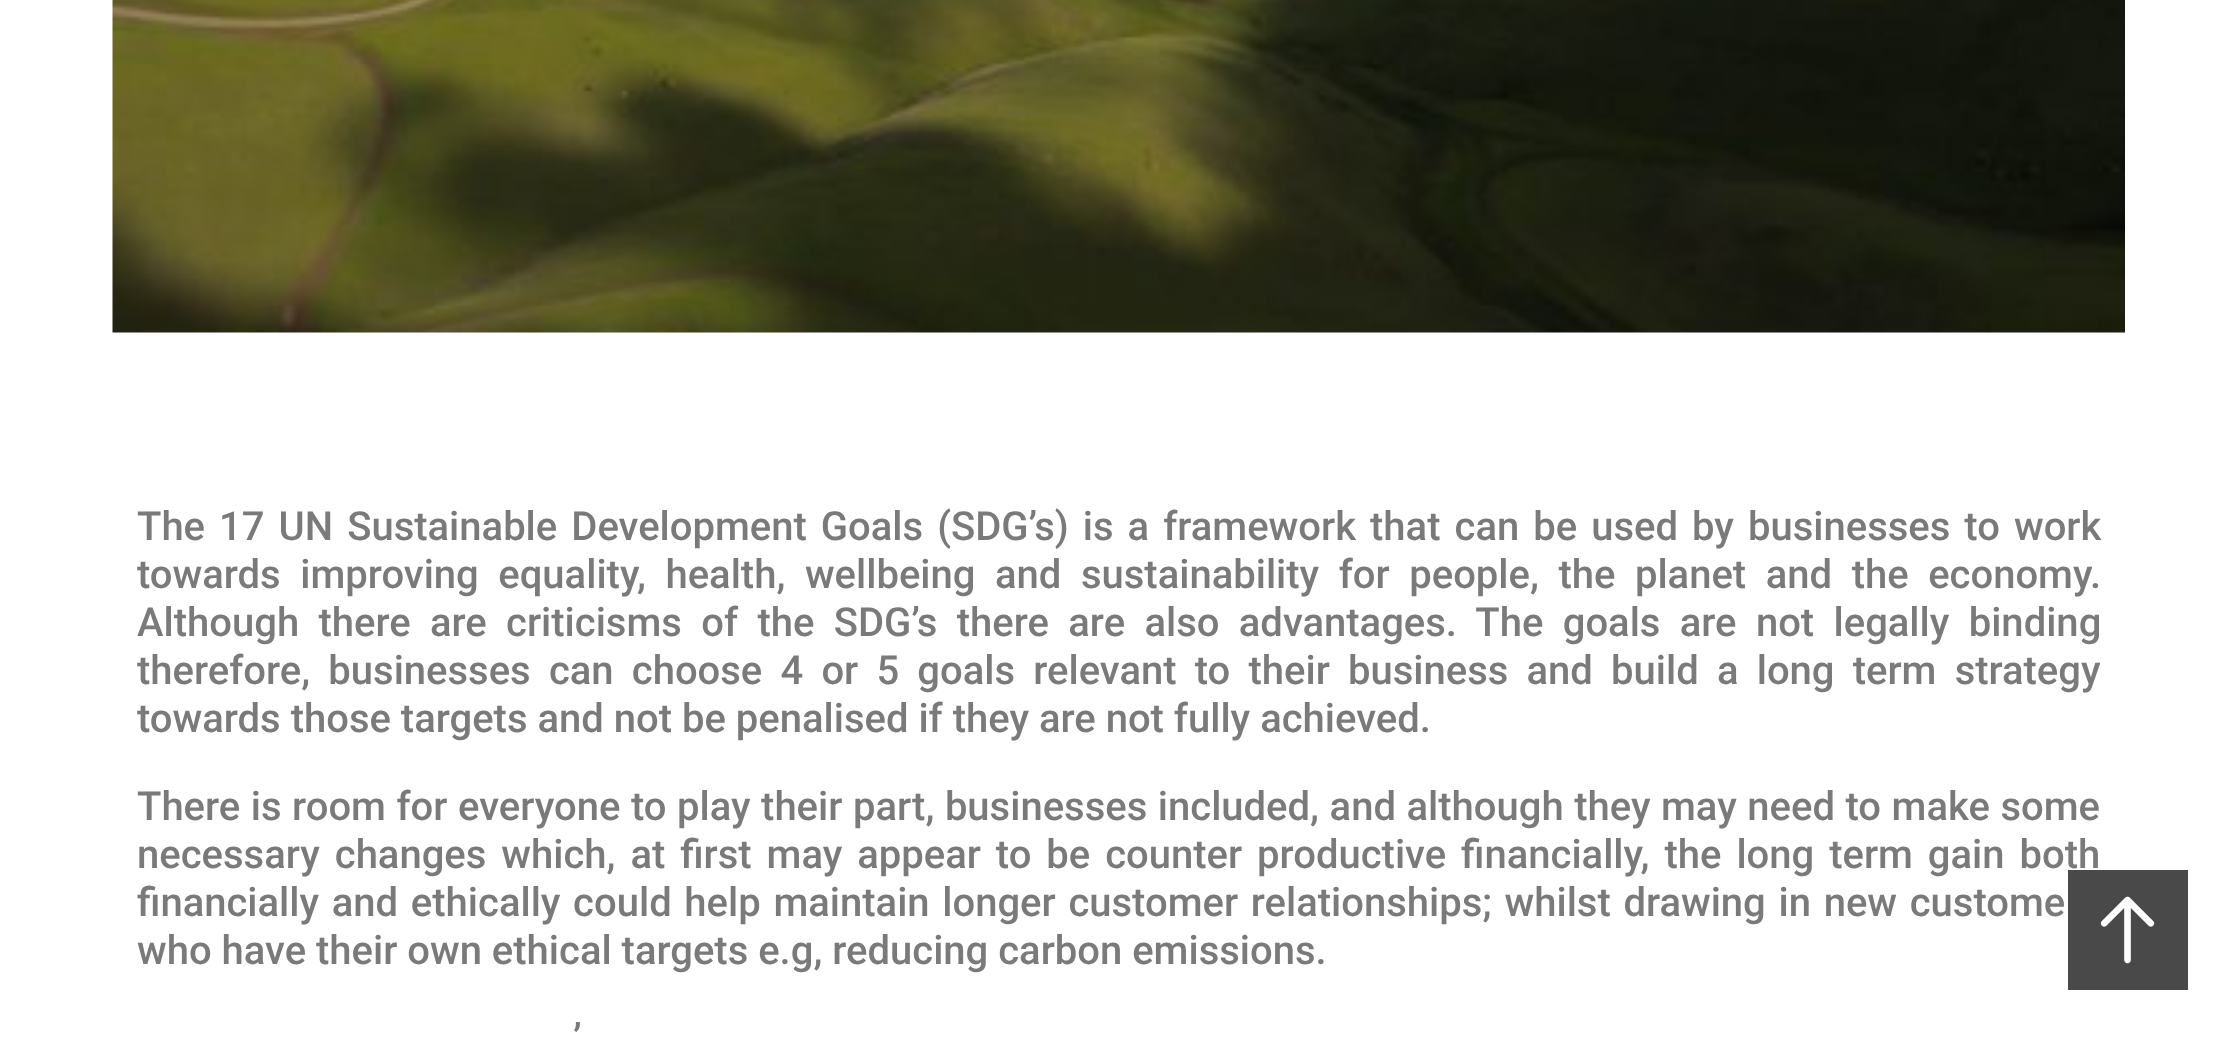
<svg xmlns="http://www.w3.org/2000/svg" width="2237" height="1040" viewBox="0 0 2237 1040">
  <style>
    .t1 { font: 500 40px Roboto; fill: #7a7a7a; }
  </style>
  <rect width="100%" height="100%" fill="#fff"/>
  <image x="112" y="0" width="2013" height="333" href="images/1.png"/>
  <text x="137" y="540" word-spacing="4.1" class="t1">The 17 UN Sustainable Development Goals (SDG’s) is a framework that can be used by businesses to work</text>
  <text x="137" y="588" word-spacing="9.6" class="t1">towards improving equality, health, wellbeing and sustainability for people, the planet and the economy.</text>
  <text x="137" y="636" word-spacing="9.4" class="t1">Although there are criticisms of the SDG’s there are also advantages. The goals are not legally binding</text>
  <text x="137" y="684" word-spacing="8.25" class="t1">therefore, businesses can choose 4 or 5 goals relevant to their business and build a long term strategy</text>
  <text x="137" y="732" class="t1">towards those targets and not be penalised if they are not fully achieved.</text>
  <text x="137" y="820" word-spacing="0.6" class="t1">There is room for everyone to play their part, businesses included, and although they may need to make some</text>
  <text x="137" y="868" word-spacing="5" class="t1">necessary changes which, at first may appear to be counter productive financially, the long term gain both</text>
  <text x="137" y="916" word-spacing="2.75" class="t1">financially and ethically could help maintain longer customer relationships; whilst drawing in new custome</text>
  <text x="137" y="964" class="t1">who have their own ethical targets e.g, reducing carbon emissions.</text>
  <text x="573" y="1052" word-spacing="1" class="t1">’</text>
  <rect x="2068" y="870" width="120" height="120" fill="#494949"/>
  <image x="2100" y="896" width="55" height="68" href="images/2.png"/>
</svg>
